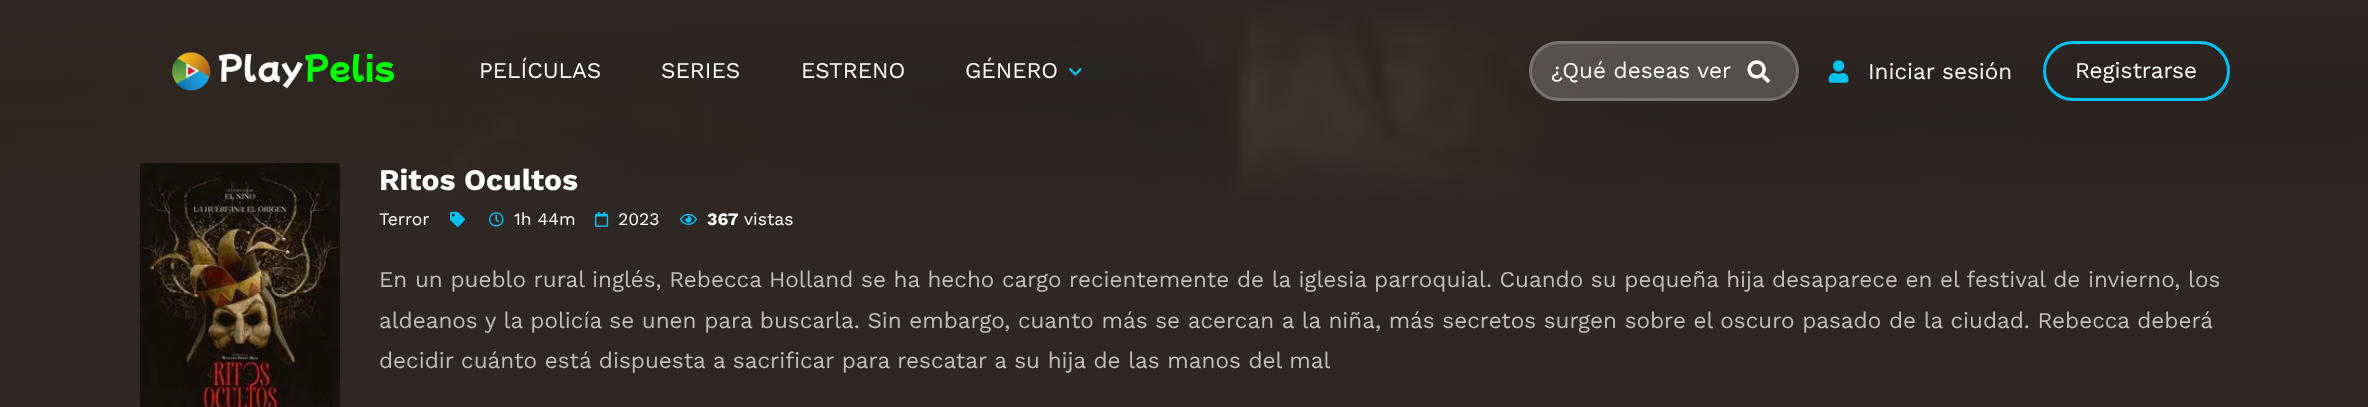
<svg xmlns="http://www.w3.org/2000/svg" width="2368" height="407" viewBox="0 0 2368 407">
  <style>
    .t1 { font: 22.5px Work Sans; fill: #fff; }
    .t2 { font: bold 30px Work Sans; fill: #fff; }
    .t3 { font: 17.5px Work Sans; fill: #fff; }
    .t4 { font: bold 17.5px Work Sans; fill: #fff; }
    .t5 { font: 22.5px Work Sans; fill: #c1bebd; }
  </style>
  <defs>
    <linearGradient id="g1" gradientUnits="userSpaceOnUse" x1="1184" y1="0" x2="1184" y2="200"><stop offset="0" stop-color="#2f2723"/><stop offset="1" stop-color="#2f2723" stop-opacity="0"/></linearGradient>
    <linearGradient id="g2" gradientUnits="userSpaceOnUse" x1="1184" y1="0" x2="1184" y2="204"><stop offset="0" stop-color="#2f2723" stop-opacity="0"/><stop offset="1" stop-color="#2f2723"/></linearGradient>
  </defs>
  <rect width="100%" height="100%" fill="#2f2723"/>
  <image x="0" y="1" width="2368" height="202" href="images/1.png"/>
  <rect x="0" y="1" width="2368" height="190" fill="url(#g1)"/>
  <rect x="0" y="44" width="2368" height="159" fill="url(#g2)"/>
  <image x="172" y="52" width="223" height="39" href="images/2.png"/>
  <text x="479" y="78" class="t1">PELÍCULAS</text>
  <text x="661" y="78" class="t1">SERIES</text>
  <text x="801" y="78" class="t1">ESTRENO</text>
  <text x="965" y="78" class="t1">GÉNERO</text>
  <image x="1069" y="68" width="13" height="8" href="images/3.png"/>
  <rect x="1529" y="41" width="270" height="60" rx="30" fill="#ffffff33"/>
  <rect x="1530.5" y="42.5" width="267" height="57" rx="28.5" fill="none" stroke="#ffffff33" stroke-width="3"/>
  <text x="1551" y="78" class="t1">¿Qué deseas ver</text>
  <image x="1747" y="60" width="23" height="23" href="images/4.png"/>
  <image x="1828" y="60" width="21" height="23" href="images/5.png"/>
  <text x="1868" y="79" class="t1">Iniciar sesión</text>
  <rect x="2044.5" y="42.5" width="184" height="57" rx="28.5" fill="none" stroke="#03c1ef" stroke-width="3"/>
  <text x="2075" y="78" class="t1">Registrarse</text>
  <image x="140" y="163" width="200" height="244" href="images/6.png"/>
  <text x="379" y="190" class="t2">Ritos Ocultos</text>
  <text x="379" y="225" class="t3">Terror</text>
  <image x="450" y="211" width="15" height="16" href="images/7.png"/>
  <image x="489" y="212" width="15" height="15" href="images/8.png"/>
  <text x="514" y="225" class="t3">1h 44m</text>
  <image x="595" y="211" width="14" height="16" href="images/9.png"/>
  <text x="618" y="225" class="t3">2023</text>
  <image x="680" y="213" width="17" height="12" href="images/10.png"/>
  <text x="707" y="225" class="t4">367</text>
  <text x="744" y="225" class="t3">vistas</text>
  <text x="379" y="287" class="t5">En un pueblo rural inglés, Rebecca Holland se ha hecho cargo recientemente de la iglesia parroquial. Cuando su pequeña hija desaparece en el festival de invierno, los</text>
  <text x="379" y="328" class="t5">aldeanos y la policía se unen para buscarla. Sin embargo, cuanto más se acercan a la niña, más secretos surgen sobre el oscuro pasado de la ciudad. Rebecca deberá</text>
  <text x="379" y="368" class="t5">decidir cuánto está dispuesta a sacrificar para rescatar a su hija de las manos del mal</text>
</svg>
